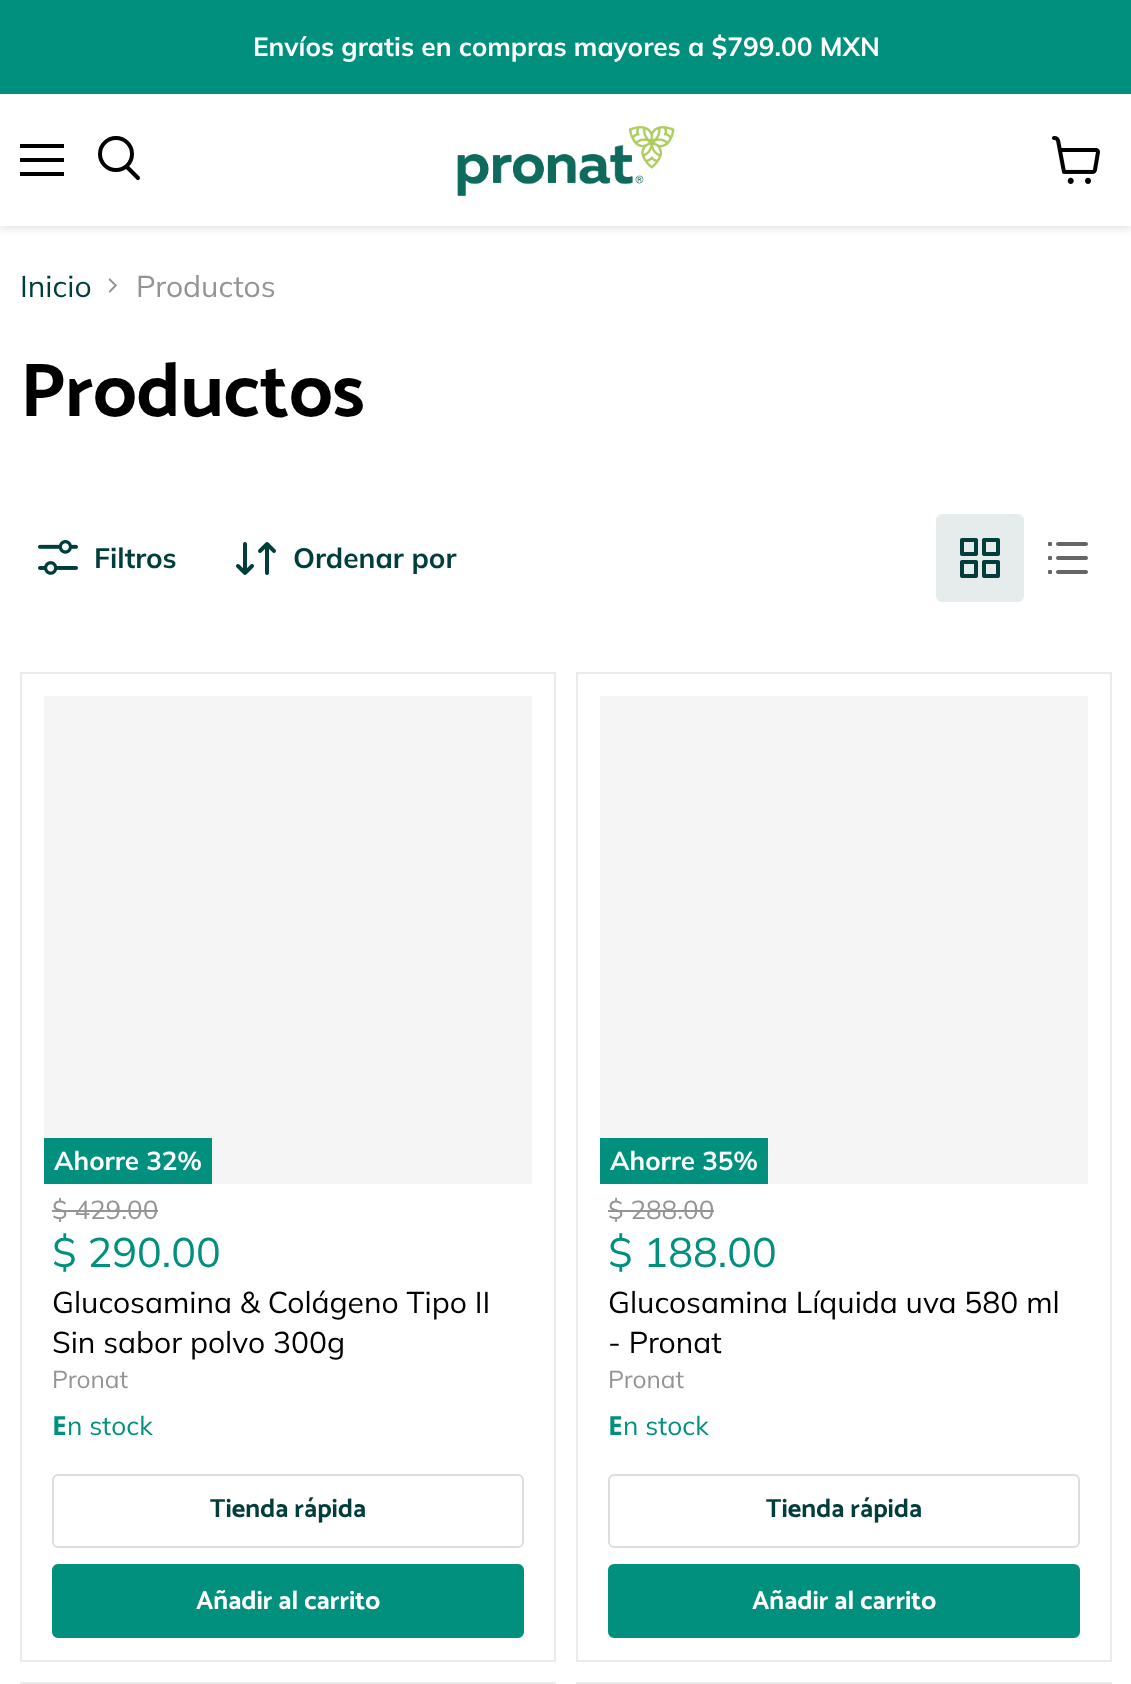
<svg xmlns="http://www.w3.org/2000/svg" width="1131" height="1684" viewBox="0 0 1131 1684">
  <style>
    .t1 { font: bold 26.25px Muli; fill: #fff; }
    .t2 { font: 30px Muli; fill: #003d3b; }
    .t3 { font: 30px Muli; fill: #949494; }
    .t4 { font: bold 76.5px Catamaran; fill: #000; }
    .t5 { font: bold 28px Muli; fill: #003d3b; }
    .t6 { font: bold 26px Muli; fill: #fff; }
    .t7 { font: 26px Muli; fill: #949494; }
    .t8 { font: 41.25px Muli; fill: #00907d; }
    .t9 { font: 30px Muli; fill: #000; }
    .t10 { font: 24.5px Muli; fill: #949494; }
    .t11 { font: bold 26.25px Noto Sans; fill: #00907d; }
    .t12 { font: 26.25px Muli; fill: #00907d; }
    .t13 { font: bold 26.25px Catamaran; fill: #003d3b; }
    .t14 { font: bold 26.25px Catamaran; fill: #fff; }
  </style>
  <defs>
    <clipPath id="clip1"><path d="M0 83H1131V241H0ZM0 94H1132V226H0Z" clip-rule="evenodd"/></clipPath>
  </defs>
  <rect width="100%" height="100%" fill="#fff"/>
  <rect x="0" y="0" width="1131" height="94" fill="#00907d"/>
  <text x="253" y="56" class="t1">Envíos gratis en compras mayores a $799.00 MXN</text>
  <g clip-path="url(#clip1)">
    <rect x="0" y="96" width="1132" height="132" fill="#80808040" filter="blur(4px)"/>
  </g>
  <rect x="20" y="144" width="44" height="4" fill="#000"/>
  <rect x="20" y="158" width="44" height="4" fill="#000"/>
  <rect x="20" y="172" width="44" height="4" fill="#000"/>
  <path d="M138 178L127 167" fill="none" stroke="#000" stroke-width="4" stroke-linecap="round"/>
  <circle cx="116" cy="154" r="16" fill="none" stroke="#000" stroke-width="4"/>
  <image x="457" y="126" width="218" height="71" href="images/1.png"/>
  <image x="1052" y="136" width="48" height="48" href="images/2.png"/>
  <text x="20" y="297" class="t2">Inicio</text>
  <image x="108" y="278" width="9" height="15" href="images/3.png"/>
  <text x="136" y="297" class="t3">Productos</text>
  <text x="20" y="416" class="t4">Productos</text>
  <image x="38" y="540" width="40" height="35" href="images/4.png"/>
  <text x="94" y="568" class="t5">Filtros</text>
  <image x="236" y="542" width="40" height="33" href="images/5.png"/>
  <text x="293" y="568" class="t5">Ordenar por</text>
  <rect x="936" y="514" width="88" height="88" rx="6" fill="#e6eceb"/>
  <image x="960" y="538" width="40" height="40" href="images/6.png"/>
  <image x="1048" y="542" width="40" height="32" href="images/7.png"/>
  <rect x="21" y="673" width="534" height="988" fill="none" stroke="#ebebeb" stroke-width="2"/>
  <rect x="44" y="696" width="488" height="488" fill="#f5f5f5"/>
  <rect x="44" y="1138" width="168" height="46" fill="#00907d"/>
  <text x="54" y="1170" class="t6">Ahorre 32%</text>
  <text x="52" y="1219" class="t7">$ 429.00</text>
  <rect x="52" y="1210" width="106" height="2" fill="#949494"/>
  <text x="52" y="1267" class="t8">$ 290.00</text>
  <text x="52" y="1313" class="t9">Glucosamina &amp; Colágeno Tipo II</text>
  <text x="52" y="1353" class="t9">Sin sabor polvo 300g</text>
  <text x="52" y="1388" class="t10">Pronat</text>
  <text x="52" y="1435" class="t11">E</text>
  <text x="67" y="1435" class="t12">n stock</text>
  <rect x="53" y="1475" width="470" height="72" rx="5" fill="none" stroke="#ddd" stroke-width="2"/>
  <text x="210" y="1517" class="t13">Tienda rápida</text>
  <rect x="53" y="1565" width="470" height="72" rx="5" fill="#00907d" stroke="#00907d" stroke-width="2"/>
  <text x="196" y="1609" class="t14">Añadir al carrito</text>
  <rect x="577" y="673" width="534" height="988" fill="none" stroke="#ebebeb" stroke-width="2"/>
  <rect x="600" y="696" width="488" height="488" fill="#f5f5f5"/>
  <rect x="600" y="1138" width="168" height="46" fill="#00907d"/>
  <text x="610" y="1170" class="t6">Ahorre 35%</text>
  <text x="608" y="1219" class="t7">$ 288.00</text>
  <rect x="608" y="1210" width="106" height="2" fill="#949494"/>
  <text x="608" y="1267" class="t8">$ 188.00</text>
  <text x="608" y="1313" class="t9">Glucosamina Líquida uva 580 ml</text>
  <text x="608" y="1353" class="t9">- Pronat</text>
  <text x="608" y="1388" class="t10">Pronat</text>
  <text x="608" y="1435" class="t11">E</text>
  <text x="623" y="1435" class="t12">n stock</text>
  <rect x="609" y="1475" width="470" height="72" rx="5" fill="none" stroke="#ddd" stroke-width="2"/>
  <text x="766" y="1517" class="t13">Tienda rápida</text>
  <rect x="609" y="1565" width="470" height="72" rx="5" fill="#00907d" stroke="#00907d" stroke-width="2"/>
  <text x="752" y="1609" class="t14">Añadir al carrito</text>
  <rect x="21" y="1683" width="534" height="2" fill="none" stroke="#ebebeb" stroke-width="2"/>
  <rect x="577" y="1683" width="534" height="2" fill="none" stroke="#ebebeb" stroke-width="2"/>
</svg>
